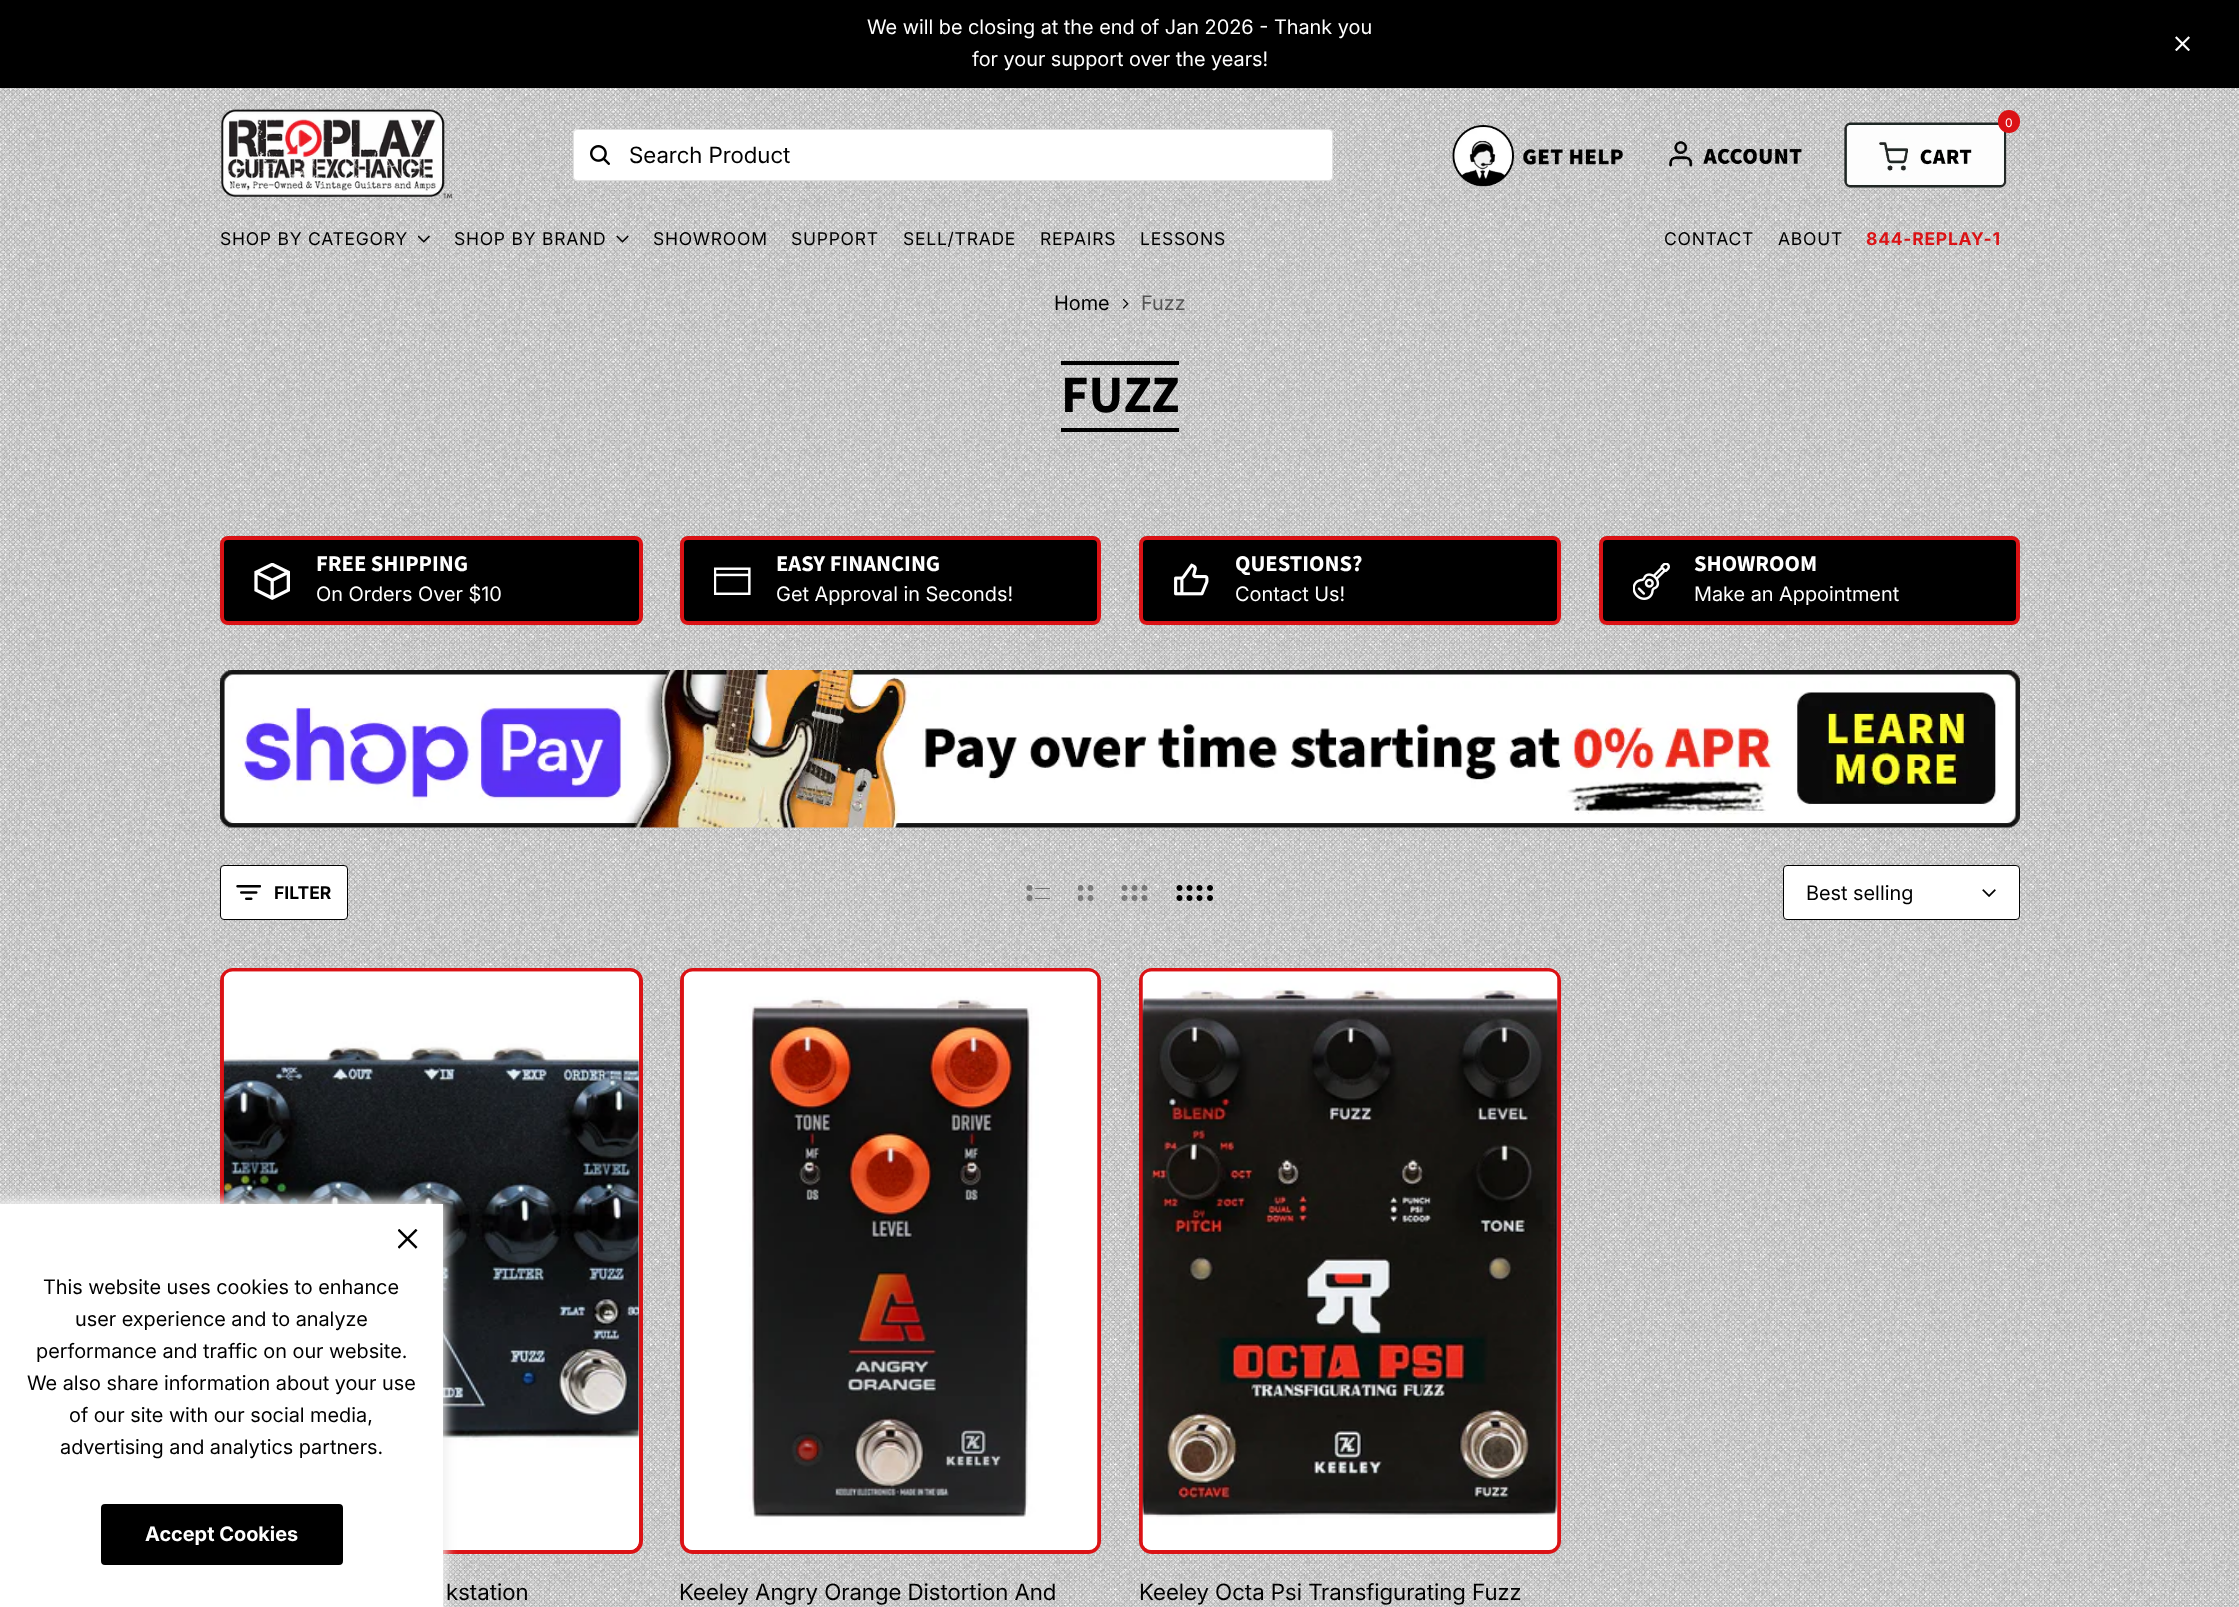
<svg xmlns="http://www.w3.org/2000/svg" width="2239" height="1607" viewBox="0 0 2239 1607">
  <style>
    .t1 { font: 20px Inter; fill: #fff; }
    .t2 { font: 12px 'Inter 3'; fill: #fff; }
    .t3 { font: 22.5px 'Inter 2'; fill: #000; }
    .t4 { font: 17.5px 'Inter 3'; letter-spacing: 0.75px; fill: #000; }
    .t5 { font: bold 17.5px Inter; letter-spacing: 0.75px; fill: #db1215; }
    .t6 { font: 20px Inter; fill: #000; }
    .t7 { font: bold 20px 'Inter 2'; fill: #fff; }
    .t8 { font: 20px Inter; fill: #545454; }
    .t9 { font: bold 52.5px Source Sans Pro; fill: #000; }
    .t10 { font: bold 22.5px Source Sans Pro; fill: #fff; }
    .t11 { font: bold 17.5px Inter; fill: #000; }
  </style>
  <rect width="100%" height="100%" fill="#fff"/>
  <image x="0" y="88" width="2239" height="1519" href="images/1.png"/>
  <rect x="0" y="0" width="2239" height="88" fill="#000"/>
  <text x="867" y="34" class="t1">We will be closing at the end of Jan 2026 - Thank you</text>
  <text x="972" y="66" class="t1">for your support over the years!</text>
  <image x="2175" y="36" width="15" height="15" href="images/2.png"/>
  <image x="220" y="109" width="233" height="90" href="images/3.png"/>
  <image x="1844" y="122" width="163" height="66" href="images/4.png"/>
  <rect x="1998" y="110" width="22" height="23" rx="11" fill="#db1215"/>
  <text x="2005" y="127" class="t2">0</text>
  <image x="1452" y="125" width="171" height="62" href="images/5.png"/>
  <image x="1669" y="141" width="133" height="26" href="images/6.png"/>
  <rect x="573" y="129" width="760" height="52" rx="4" fill="#fff"/>
  <rect x="573.5" y="129.5" width="759" height="51" rx="3.5" fill="none" stroke="#0000001f"/>
  <image x="590" y="145" width="20" height="20" href="images/7.png"/>
  <text x="629" y="163" class="t3">Search Product</text>
  <text x="220" y="245" class="t4">SHOP BY CATEGORY</text>
  <image x="418" y="235" width="12" height="8" href="images/8.png"/>
  <text x="454" y="245" class="t4">SHOP BY BRAND</text>
  <image x="616" y="235" width="13" height="8" href="images/9.png"/>
  <text x="653" y="245" class="t4">SHOWROOM</text>
  <text x="791" y="245" class="t4">SUPPORT</text>
  <text x="903" y="245" class="t4">SELL/TRADE</text>
  <text x="1040" y="245" class="t4">REPAIRS</text>
  <text x="1140" y="245" class="t4">LESSONS</text>
  <text x="1664" y="245" class="t4">CONTACT</text>
  <text x="1778" y="245" class="t4">ABOUT</text>
  <text x="1866" y="245" class="t5">844-REPLAY-1</text>
  <rect x="222" y="970" width="419" height="582" rx="11" fill="#fff" stroke="#db1215" stroke-width="4"/>
  <image x="223" y="971" width="416" height="579" href="images/22.png"/>
  <rect x="-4" y="1200" width="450" height="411" fill="#eee" filter="blur(6px)"/>
  <rect x="0" y="1204" width="443" height="403" fill="#fff"/>
  <image x="398" y="1229" width="20" height="20" href="images/10.png"/>
  <text x="43" y="1294" class="t6">This website uses cookies to enhance</text>
  <text x="75" y="1326" class="t6">user experience and to analyze</text>
  <text x="36" y="1358" class="t6">performance and traffic on our website.</text>
  <text x="27" y="1390" class="t6">We also share information about your use</text>
  <text x="69" y="1422" class="t6">of our site with our social media,</text>
  <text x="60" y="1454" class="t6">advertising and analytics partners.</text>
  <rect x="102.5" y="1505.5" width="239" height="58" rx="2.5" fill="#000" stroke="#000" stroke-width="3"/>
  <text x="145" y="1541" class="t7">Accept Cookies</text>
  <text x="1054" y="310" class="t6">Home</text>
  <image x="1123" y="299" width="6" height="10" href="images/11.png"/>
  <text x="1141" y="310" class="t8">Fuzz</text>
  <rect x="1061" y="361" width="118" height="4" fill="#000"/>
  <rect x="1061" y="428" width="118" height="4" fill="#000"/>
  <text x="1061" y="412" class="t9">FUZZ</text>
  <rect x="222" y="538" width="419" height="85" rx="6" fill="#000" stroke="#db1215" stroke-width="4"/>
  <image x="254" y="563" width="36" height="37" href="images/12.png"/>
  <text x="316" y="571" class="t10">FREE SHIPPING</text>
  <text x="316" y="601" class="t1">On Orders Over $10</text>
  <rect x="682" y="538" width="417" height="85" rx="6" fill="#000" stroke="#db1215" stroke-width="4"/>
  <image x="714" y="567" width="37" height="28" href="images/13.png"/>
  <text x="776" y="571" class="t10">EASY FINANCING</text>
  <text x="776" y="601" class="t1">Get Approval in Seconds!</text>
  <rect x="1141" y="538" width="418" height="85" rx="6" fill="#000" stroke="#db1215" stroke-width="4"/>
  <image x="1174" y="563" width="35" height="33" href="images/14.png"/>
  <text x="1235" y="571" class="t10">QUESTIONS?</text>
  <text x="1235" y="601" class="t1">Contact Us!</text>
  <rect x="1601" y="538" width="417" height="85" rx="6" fill="#000" stroke="#db1215" stroke-width="4"/>
  <image x="1633" y="563" width="37" height="37" href="images/15.png"/>
  <text x="1694" y="571" class="t10">SHOWROOM</text>
  <text x="1694" y="601" class="t1">Make an Appointment</text>
  <image x="220" y="670" width="1800" height="158" href="images/16.png"/>
  <rect x="220.5" y="865.5" width="127" height="54" rx="3.5" fill="#fff" stroke="#000"/>
  <image x="236" y="885" width="25" height="15" href="images/17.png"/>
  <text x="274" y="899" class="t11">FILTER</text>
  <circle cx="1029.5" cy="888" r="3" fill="#00000066"/>
  <circle cx="1029.5" cy="898" r="3" fill="#00000066"/>
  <rect x="1035" y="888" width="15" height="1" fill="#00000066"/>
  <rect x="1035" y="898" width="15" height="1" fill="#00000066"/>
  <image x="1078" y="885" width="16" height="16" href="images/18.png"/>
  <image x="1121" y="885" width="27" height="16" href="images/19.png"/>
  <image x="1176" y="885" width="37" height="16" href="images/20.png"/>
  <rect x="1783.5" y="865.5" width="236" height="54" rx="3.5" fill="#fff" stroke="#000"/>
  <text x="1806" y="900" class="t6">Best selling</text>
  <image x="1982" y="889" width="14" height="8" href="images/21.png"/>
  <text x="446" y="1600" class="t3">kstation</text>
  <rect x="682" y="970" width="417" height="582" rx="11" fill="none" stroke="#db1215" stroke-width="4"/>
  <image x="683" y="971" width="415" height="579" href="images/23.png"/>
  <text x="679" y="1600" class="t3">Keeley Angry Orange Distortion And</text>
  <rect x="1141" y="970" width="418" height="582" rx="11" fill="none" stroke="#db1215" stroke-width="4"/>
  <image x="1142" y="971" width="416" height="579" href="images/24.png"/>
  <text x="1139" y="1600" class="t3">Keeley Octa Psi Transfigurating Fuzz</text>
</svg>
